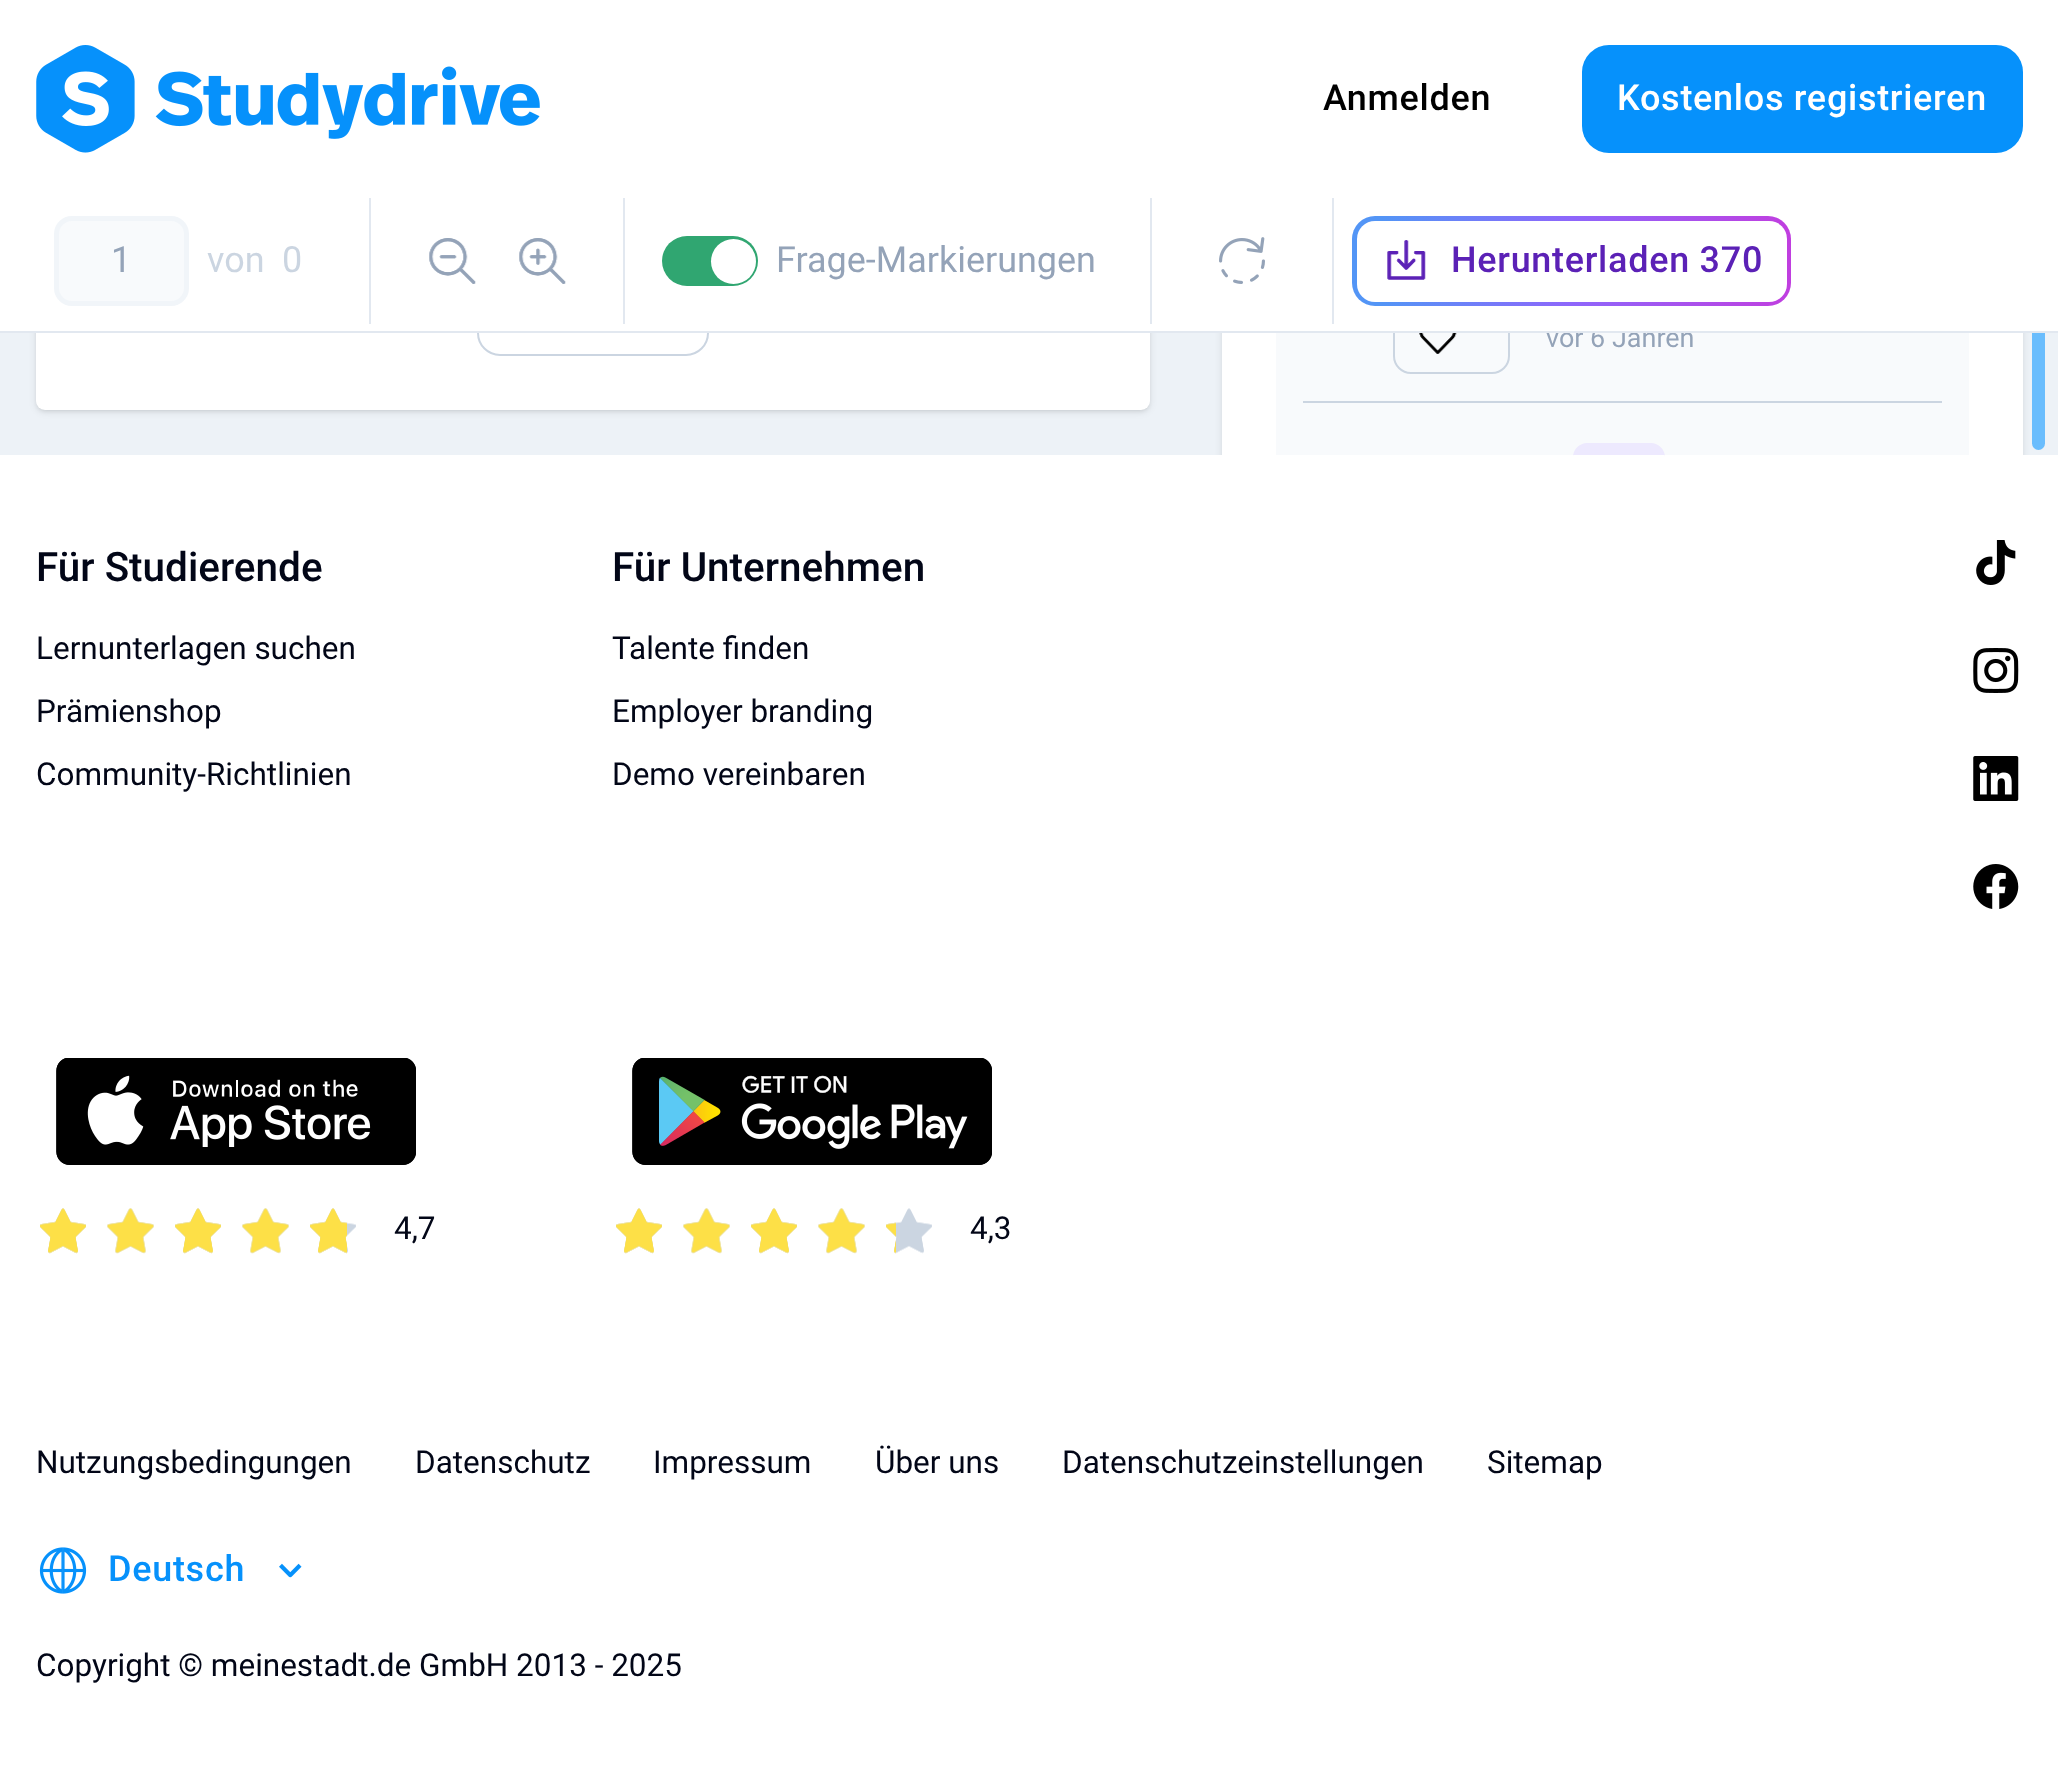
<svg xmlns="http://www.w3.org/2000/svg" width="2058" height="1776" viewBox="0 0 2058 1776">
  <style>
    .t1 { font: 27px Roboto; fill: #94a3b8; }
    .t2 { font: 500 36px Roboto; letter-spacing: 0.7px; fill: #000; }
    .t3 { font: 500 36px Roboto; letter-spacing: 0.7px; fill: #fff; }
    .t4 { font: 36px Roboto; fill: #94a3b8; }
    .t5 { font: 36px Roboto; fill: #cbd5e1; }
    .t6 { font: 500 36px Roboto; letter-spacing: 0.7px; fill: #5b21b6; }
    .t7 { font: 500 40.5px Roboto; fill: #020617; }
    .t8 { font: 31.5px Roboto; fill: #020617; }
    .t9 { font: 500 36px Roboto; letter-spacing: 0.7px; fill: #0691fb; }
  </style>
  <defs>
    <clipPath id="clip1"><rect x="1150" y="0" width="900" height="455"/></clipPath>
    <linearGradient id="g1" gradientUnits="userSpaceOnUse" x1="1352" y1="261" x2="1842" y2="261"><stop offset="0.06" stop-color="#5395f6"/><stop offset="0.45" stop-color="#8e66fb"/><stop offset="1" stop-color="#cc35d9"/></linearGradient>
  </defs>
  <rect width="100%" height="100%" fill="#edf2f7"/>
  <rect x="38" y="126" width="1110" height="284" rx="7" fill="#0000001a" filter="blur(2px)"/>
  <rect x="36" y="124" width="1114" height="288" rx="9" fill="#0000001a" filter="blur(3.5px)"/>
  <rect x="36" y="122" width="1114" height="288" rx="9" fill="#fff"/>
  <rect x="478" y="267" width="230" height="88" rx="22" fill="none" stroke="#cbd5e1" stroke-width="2"/>
  <rect x="0" y="455" width="2058" height="1321" fill="#fff"/>
  <image x="1976" y="540" width="40" height="45" href="images/7.png"/>
  <image x="1973" y="648" width="46" height="45" href="images/8.png"/>
  <image x="1973" y="756" width="46" height="45" href="images/9.png"/>
  <image x="1973" y="864" width="46" height="45" href="images/10.png"/>
  <g clip-path="url(#clip1)">
    <rect x="1222" y="-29" width="801" height="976" rx="18" fill="#0000001a" filter="blur(3.5px)"/>
  </g>
  <rect x="1222" y="333" width="801" height="122" fill="#fff"/>
  <rect x="1276" y="333" width="693" height="122" fill="#f8fafc"/>
  <rect x="1394" y="303" width="115" height="70" rx="17" fill="none" stroke="#cbd5e1" stroke-width="2"/>
  <text x="1546" y="347" class="t1">vor 6 Jahren</text>
  <rect x="2032" y="113" width="13" height="337" rx="6.5" fill="#6abdfd"/>
  <rect x="0" y="0" width="2058" height="331" fill="#fff"/>
  <image x="36" y="45" width="504" height="108" href="images/1.png"/>
  <text x="1323" y="110" class="t2">Anmelden</text>
  <rect x="1582" y="45" width="441" height="108" rx="27" fill="#0691fb"/>
  <text x="1617" y="110" class="t3">Kostenlos registrieren</text>
  <rect x="0" y="331" width="2058" height="2" fill="#e2e8f0"/>
  <rect x="369" y="198" width="2" height="126" fill="#e2e8f0"/>
  <rect x="56.5" y="218.5" width="130" height="85" rx="15.5" fill="#f8fafc" stroke="#f1f5f9" stroke-width="5"/>
  <text x="111" y="272" class="t4">1</text>
  <text x="207" y="272" class="t5">von</text>
  <text x="282" y="272" class="t5">0</text>
  <rect x="623" y="198" width="2" height="126" fill="#e2e8f0"/>
  <image x="429" y="238" width="47" height="46" href="images/2.png"/>
  <image x="519" y="238" width="47" height="46" href="images/3.png"/>
  <rect x="1150" y="198" width="2" height="126" fill="#e2e8f0"/>
  <rect x="662" y="236" width="96" height="50" rx="25" fill="#30a671"/>
  <circle cx="733.5" cy="261.5" r="22.5" fill="#fff"/>
  <text x="776" y="272" class="t4">Frage-Markierungen</text>
  <rect x="1332" y="198" width="2" height="126" fill="#e2e8f0"/>
  <image x="1219" y="237" width="46" height="47" href="images/4.png"/>
  <rect x="1352" y="216" width="439" height="90" rx="23" fill="url(#g1)"/>
  <rect x="1357" y="221" width="430" height="81" rx="18" fill="#fff"/>
  <image x="1387" y="240" width="39" height="40" href="images/5.png"/>
  <text x="1451" y="272" class="t6">Herunterladen 370</text>
  <image x="1419" y="333" width="38" height="21" href="images/6.png"/>
  <rect x="1303" y="401" width="639" height="2" fill="#cbd5e1"/>
  <path d="M1587 443H1651C1658.5 443 1665 449.5 1665 457V455H1573V457C1573 449.5 1579.5 443 1587 443Z" fill="#ede9fe"/>
  <text x="36" y="581" class="t7">Für Studierende</text>
  <text x="36" y="659" class="t8">Lernunterlagen suchen</text>
  <text x="36" y="722" class="t8">Prämienshop</text>
  <text x="36" y="785" class="t8">Community-Richtlinien</text>
  <text x="612" y="581" class="t7">Für Unternehmen</text>
  <text x="612" y="659" class="t8">Talente finden</text>
  <text x="612" y="722" class="t8">Employer branding</text>
  <text x="612" y="785" class="t8">Demo vereinbaren</text>
  <image x="56" y="1058" width="360" height="107" href="images/11.png"/>
  <image x="40" y="1208" width="46" height="46" href="images/12.png"/>
  <image x="107" y="1208" width="47" height="46" href="images/13.png"/>
  <image x="175" y="1208" width="46" height="46" href="images/12.png"/>
  <image x="242" y="1208" width="47" height="46" href="images/13.png"/>
  <image x="310" y="1208" width="46" height="46" href="images/12.png"/>
  <image x="40" y="1208" width="46" height="46" href="images/14.png"/>
  <image x="107" y="1208" width="47" height="46" href="images/15.png"/>
  <image x="175" y="1208" width="46" height="46" href="images/14.png"/>
  <image x="242" y="1208" width="47" height="46" href="images/15.png"/>
  <image x="310" y="1208" width="37" height="46" href="images/16.png"/>
  <text x="394" y="1239" class="t8">4,7</text>
  <image x="632" y="1058" width="360" height="107" href="images/17.png"/>
  <image x="616" y="1208" width="46" height="46" href="images/12.png"/>
  <image x="683" y="1208" width="47" height="46" href="images/13.png"/>
  <image x="751" y="1208" width="46" height="46" href="images/12.png"/>
  <image x="818" y="1208" width="47" height="46" href="images/13.png"/>
  <image x="886" y="1208" width="46" height="46" href="images/12.png"/>
  <image x="616" y="1208" width="46" height="46" href="images/14.png"/>
  <image x="683" y="1208" width="47" height="46" href="images/15.png"/>
  <image x="751" y="1208" width="46" height="46" href="images/14.png"/>
  <image x="818" y="1208" width="47" height="46" href="images/15.png"/>
  <image x="886" y="1222" width="10" height="32" href="images/18.png"/>
  <text x="970" y="1239" class="t8">4,3</text>
  <text x="36" y="1473" class="t8">Nutzungsbedingungen</text>
  <text x="415" y="1473" class="t8">Datenschutz</text>
  <text x="653" y="1473" class="t8">Impressum</text>
  <text x="875" y="1473" class="t8">Über uns</text>
  <text x="1062" y="1473" class="t8">Datenschutzeinstellungen</text>
  <text x="1487" y="1473" class="t8">Sitemap</text>
  <image x="39" y="1547" width="48" height="47" href="images/19.png"/>
  <text x="108" y="1581" class="t9">Deutsch</text>
  <image x="279" y="1563" width="23" height="15" href="images/20.png"/>
  <text x="36" y="1676" class="t8">Copyright © meinestadt.de GmbH 2013 - 2025</text>
</svg>
